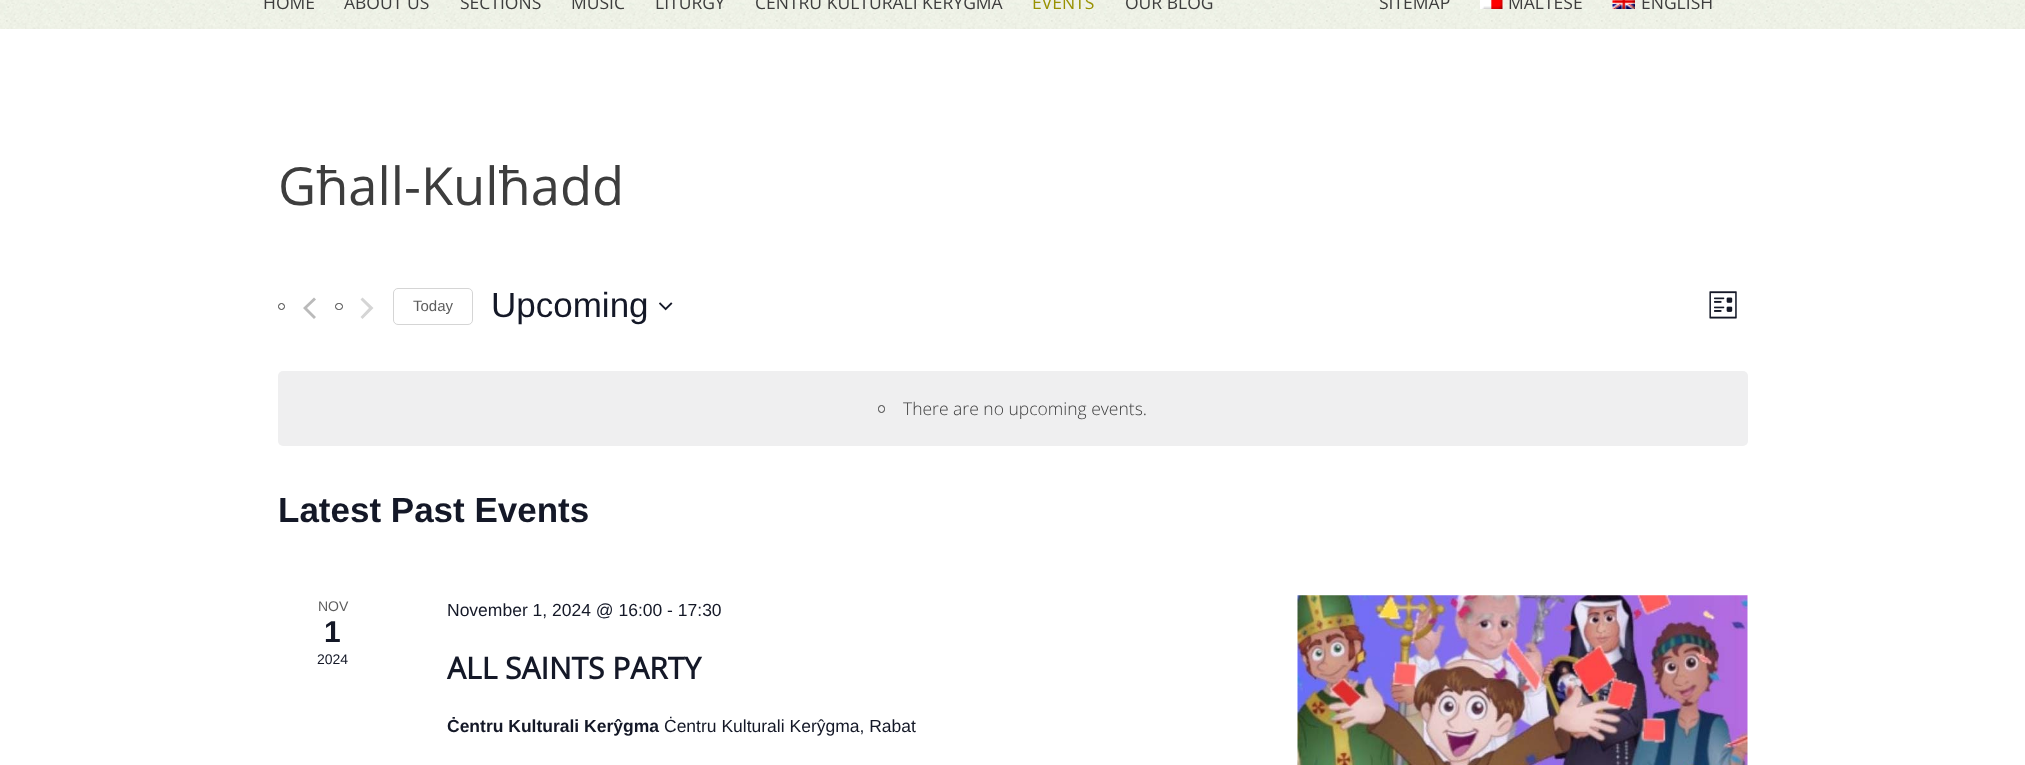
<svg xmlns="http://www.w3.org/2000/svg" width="2025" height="765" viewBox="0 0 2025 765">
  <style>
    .t1 { font: 17.5px Open Sans; fill: #3d3d3d; }
    .t2 { font: 17.5px Open Sans; fill: #989101; }
    .t3 { font: 52.5px Open Sans; fill: #3d3d3d; }
    .t4 { font: 15px Liberation Sans; fill: #5d5d5d; }
    .t5 { font: 35px Liberation Sans; fill: #141827; }
    .t6 { font: 300 17.5px Open Sans; fill: #3d3d3d; }
    .t7 { font: bold 35px Liberation Sans; fill: #141827; }
    .t8 { font: 14px Liberation Sans; fill: #5d5d5d; }
    .t9 { font: bold 30px Liberation Sans; fill: #141827; }
    .t10 { font: 14px Liberation Sans; fill: #141827; }
    .t11 { font: 17.5px Liberation Sans; fill: #141827; }
    .t12 { font: bold 30px Open Sans; fill: #141827; }
    .t13 { font: bold 17.5px Liberation Sans; fill: #141827; }
  </style>
  <rect width="100%" height="100%" fill="#fff"/>
  <image x="0" y="0" width="2025" height="29" href="images/1.png"/>
  <text x="263" y="9" class="t1">HOME</text>
  <text x="344" y="9" class="t1">ABOUT US</text>
  <text x="460" y="9" class="t1">SECTIONS</text>
  <text x="571" y="9" class="t1">MUSIC</text>
  <text x="655" y="9" class="t1">LITURGY</text>
  <text x="755" y="9" class="t1">ĊENTRU KULTURALI KERŶGMA</text>
  <text x="1032" y="9" class="t2">EVENTS</text>
  <text x="1125" y="9" class="t1">OUR BLOG</text>
  <text x="1379" y="9" class="t1">SITEMAP</text>
  <image x="1480" y="0" width="23" height="9" href="images/2.png"/>
  <text x="1508" y="9" class="t1">MALTESE</text>
  <image x="1612" y="0" width="23" height="9" href="images/3.png"/>
  <text x="1641" y="9" class="t1">ENGLISH</text>
  <text x="278" y="205" class="t3">Għall-Kulħadd</text>
  <circle cx="281.5" cy="306.5" r="3" fill="none" stroke="#3d3d3d"/>
  <path d="M316 317L314 319L303 308L314 297.5L316 299.5L307 308Z" fill="#bababa"/>
  <rect x="335.5" y="303.5" width="7" height="6" rx="3" fill="none" stroke="#3d3d3d"/>
  <path d="M360.5 299.5L362.5 297.5L373.5 308L362.5 319L360.5 317L369 308Z" fill="#d5d5d5"/>
  <rect x="393.5" y="288.5" width="79" height="36" rx="4.5" fill="none" stroke="#d5d5d5"/>
  <text x="413" y="311" class="t4">Today</text>
  <text x="491" y="317" class="t5">Upcoming</text>
  <image x="659" y="302" width="14" height="9" href="images/4.png"/>
  <image x="1709" y="291" width="28" height="28" href="images/5.png"/>
  <rect x="278" y="371" width="1470" height="75" rx="5" fill="#efeff0"/>
  <rect x="878.5" y="405.5" width="6" height="7" rx="3" fill="none" stroke="#3d3d3d"/>
  <text x="903" y="415" class="t6">There are no upcoming events.</text>
  <text x="278" y="522" class="t7">Latest Past Events</text>
  <text x="318" y="611" class="t8">NOV</text>
  <text x="324" y="642" class="t9">1</text>
  <text x="317" y="664" class="t10">2024</text>
  <text x="447" y="616" class="t11">November 1, 2024 @ 16:00 - 17:30</text>
  <text x="447" y="679" class="t12">ALL SAINTS PARTY</text>
  <text x="447" y="732" class="t13">Ċentru Kulturali Kerŷgma</text>
  <text x="664" y="732" class="t11">Ċentru Kulturali Kerŷgma, Rabat</text>
  <image x="1297" y="595" width="451" height="170" href="images/6.png"/>
</svg>
